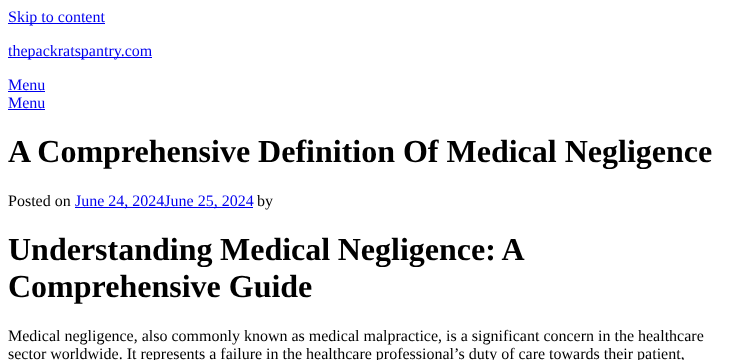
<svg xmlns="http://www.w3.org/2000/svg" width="752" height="360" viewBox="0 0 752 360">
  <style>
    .t1 { font: 16px Liberation Serif; fill: #00e; }
    .t2 { font: bold 32px Liberation Serif; fill: #000; }
    .t3 { font: 16px Liberation Serif; fill: #000; }
  </style>
  <rect width="100%" height="100%" fill="#fff"/>
  <rect x="8" y="23" width="97" height="1" fill="#00e"/>
  <text x="8" y="22" class="t1">Skip to content</text>
  <rect x="8" y="57" width="144" height="1" fill="#00e"/>
  <text x="8" y="56" class="t1">thepackratspantry.com</text>
  <text x="8" y="90" class="t1">Menu</text>
  <rect x="8" y="91" width="37" height="1" fill="#00e"/>
  <text x="8" y="108" class="t1">Menu</text>
  <rect x="8" y="109" width="37" height="1" fill="#00e"/>
  <text x="8" y="162" class="t2">A Comprehensive Definition Of Medical Negligence</text>
  <text x="8" y="206" class="t3">Posted on</text>
  <rect x="75" y="207" width="178" height="1" fill="#00e"/>
  <text x="75" y="206" class="t1">June 24, 2024June 25, 2024</text>
  <text x="257" y="206" class="t3">by</text>
  <text x="8" y="260" word-spacing="-0.5" class="t2">Understanding Medical Negligence: A</text>
  <text x="8" y="297" class="t2">Comprehensive Guide</text>
  <text x="8" y="341" class="t3">Medical negligence, also commonly known as medical malpractice, is a significant concern in the healthcare</text>
  <text x="8" y="359" class="t3">sector worldwide. It represents a failure in the healthcare professional’s duty of care towards their patient,</text>
</svg>
